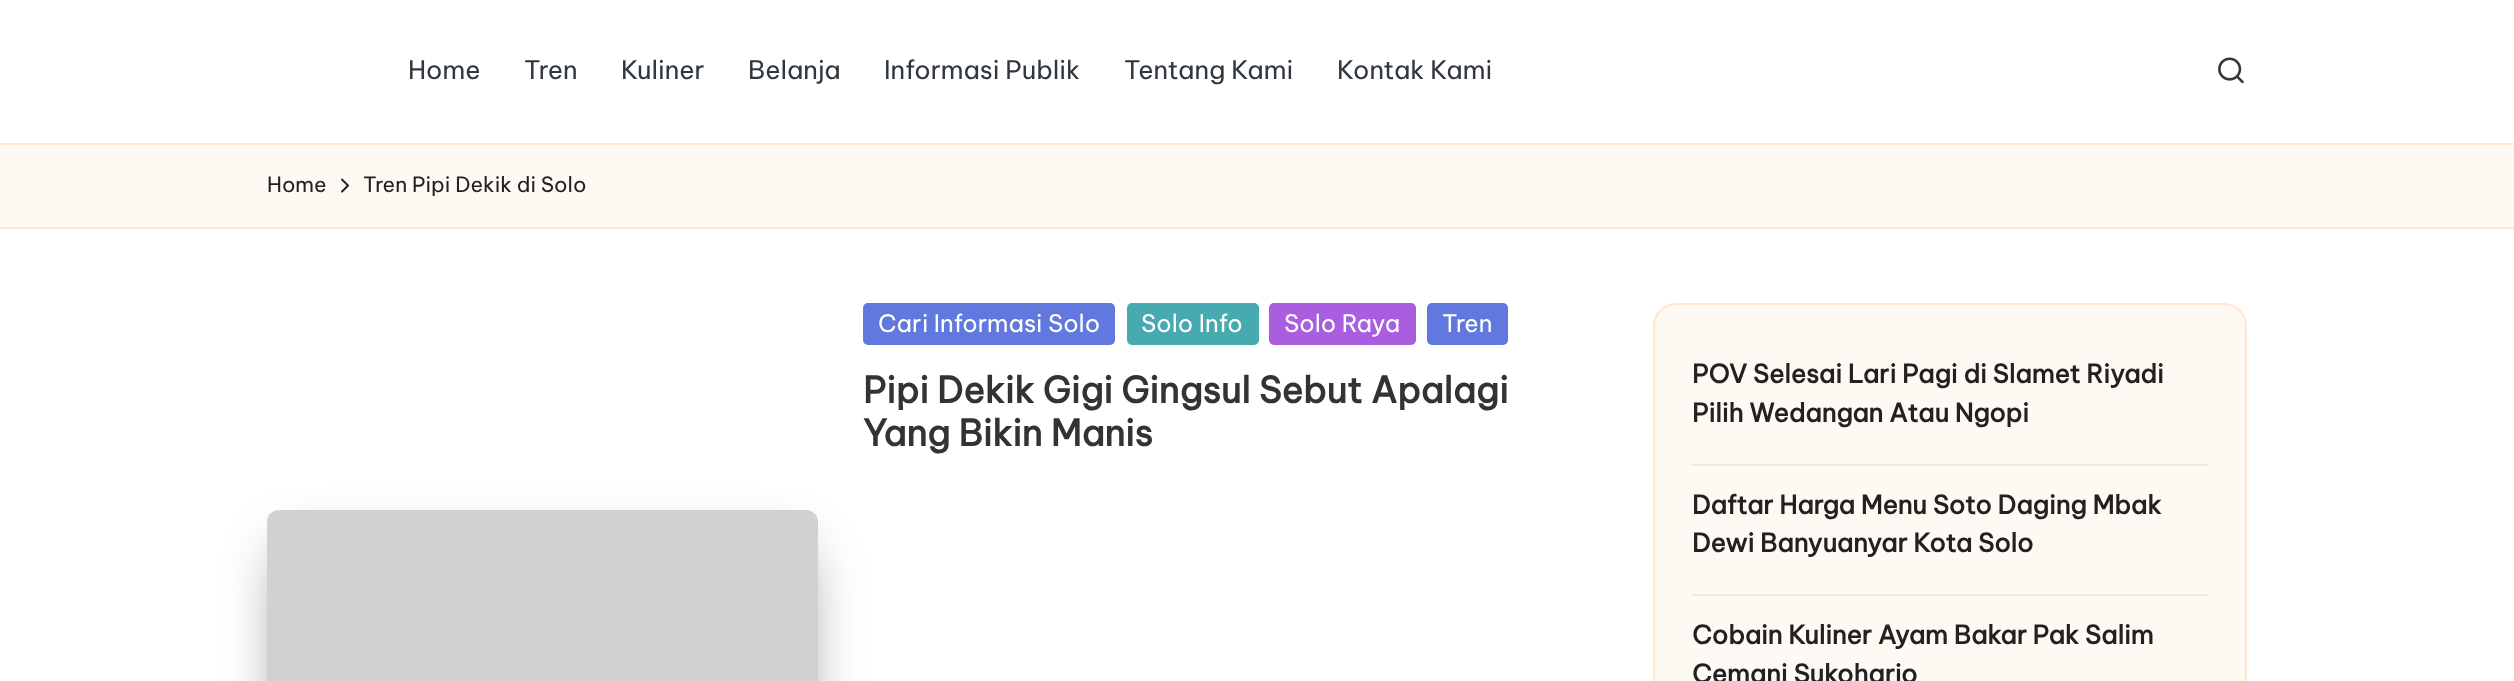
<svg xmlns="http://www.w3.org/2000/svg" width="2514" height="681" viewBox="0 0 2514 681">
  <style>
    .t1 { font: 25.5px Be Vietnam Pro; fill: #30373e; }
    .t2 { font: 21px Be Vietnam Pro; fill: #212121; }
    .t3 { font: 24px Be Vietnam Pro; fill: #fff; }
    .t4 { font: bold 36px Be Vietnam Pro; fill: #333; }
    .t5 { font: bold 25.5px Be Vietnam Pro; fill: #212121; }
  </style>
  <defs>
    <clipPath id="clip1"><path d="M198 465H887V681H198ZM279 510H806C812.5 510 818 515.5 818 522V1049C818 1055.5 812.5 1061 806 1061H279C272.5 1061 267 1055.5 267 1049V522C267 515.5 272.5 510 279 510Z" clip-rule="evenodd"/></clipPath>
  </defs>
  <rect width="100%" height="100%" fill="#fff"/>
  <text x="408" y="79" class="t1">Home</text>
  <text x="524" y="79" class="t1">Tren</text>
  <text x="621" y="79" class="t1">Kuliner</text>
  <text x="748" y="79" class="t1">Belanja</text>
  <text x="884" y="79" class="t1">Informasi Publik</text>
  <text x="1124" y="79" class="t1">Tentang Kami</text>
  <text x="1337" y="79" class="t1">Kontak Kami</text>
  <image x="2218" y="57" width="26" height="27" href="images/1.png"/>
  <rect x="0" y="145" width="2514" height="82" fill="#fff9f3"/>
  <rect x="0" y="143" width="2514" height="2" fill="#ffe7d2"/>
  <rect x="0" y="227" width="2514" height="2" fill="#ffe7d2"/>
  <text x="267" y="192" class="t2">Home</text>
  <image x="341" y="178" width="8" height="15" href="images/2.png"/>
  <text x="363" y="192" class="t2">Tren Pipi Dekik di Solo</text>
  <rect x="863" y="303" width="252" height="42" rx="5" fill="#6178df"/>
  <text x="878" y="332" class="t3">Cari Informasi Solo</text>
  <rect x="1127" y="303" width="132" height="42" rx="5" fill="#48aab1"/>
  <text x="1141" y="332" class="t3">Solo Info</text>
  <rect x="1269" y="303" width="147" height="42" rx="5" fill="#a95edf"/>
  <text x="1284" y="332" class="t3">Solo Raya</text>
  <rect x="1427" y="303" width="81" height="42" rx="5" fill="#6178df"/>
  <text x="1442" y="332" class="t3">Tren</text>
  <text x="863" y="403" class="t4">Pipi Dekik Gigi Gingsul Sebut Apalagi</text>
  <text x="863" y="446" class="t4">Yang Bikin Manis</text>
  <g clip-path="url(#clip1)">
    <rect x="285" y="552" width="515" height="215" fill="#00000080" filter="blur(28.5px)"/>
  </g>
  <rect x="267" y="510" width="551" height="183" rx="12" fill="#0000002e"/>
  <rect x="1654" y="304" width="592" height="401" rx="22" fill="#fff9f3" stroke="#ffe7d2" stroke-width="2"/>
  <text x="1692" y="383" class="t5">POV Selesai Lari Pagi di Slamet Riyadi</text>
  <text x="1692" y="422" class="t5">Pilih Wedangan Atau Ngopi</text>
  <rect x="1692" y="464" width="516" height="2" fill="#ece7e3"/>
  <text x="1692" y="514" class="t5">Daftar Harga Menu Soto Daging Mbak</text>
  <text x="1692" y="552" class="t5">Dewi Banyuanyar Kota Solo</text>
  <rect x="1692" y="594" width="516" height="2" fill="#ece7e3"/>
  <text x="1692" y="644" class="t5">Cobain Kuliner Ayam Bakar Pak Salim</text>
  <text x="1692" y="683" class="t5">Cemani Sukoharjo</text>
</svg>
